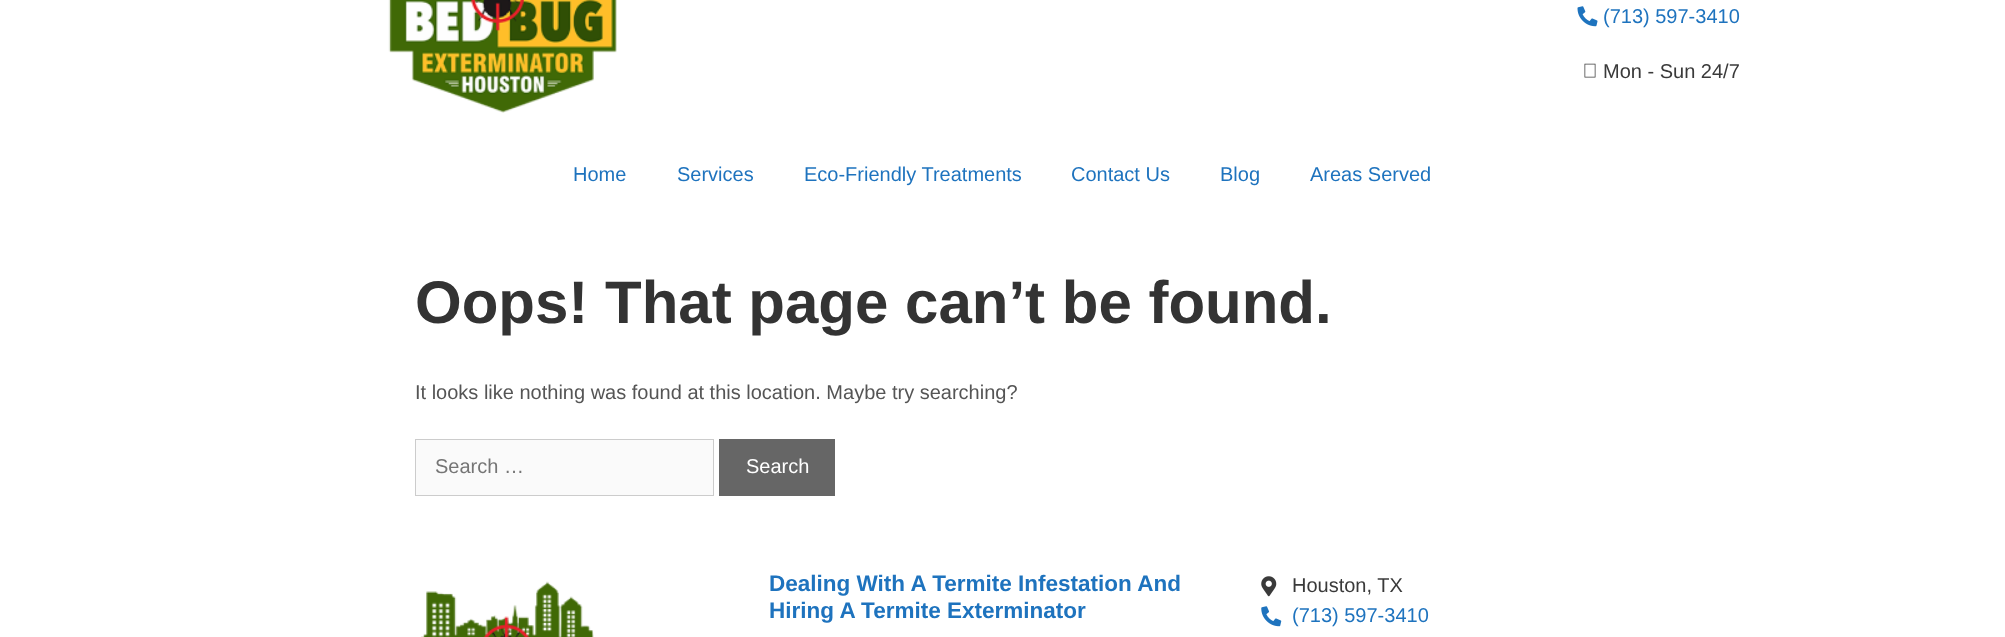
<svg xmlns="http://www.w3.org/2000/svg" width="2005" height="637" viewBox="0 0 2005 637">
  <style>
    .t1 { font: 20px Liberation Sans; fill: #1e73be; }
    .t2 { font: 20px Liberation Sans; fill: #3a3a3a; }
    .t3 { font: bold 60px Liberation Sans; fill: #333; }
    .t4 { font: 20px Liberation Sans; fill: #555; }
    .t5 { font: 20px Liberation Sans; fill: #757575; }
    .t6 { font: 20px Liberation Sans; fill: #fff; }
    .t7 { font: bold 22.5px Liberation Sans; fill: #1e73be; }
  </style>
  <rect width="100%" height="100%" fill="#fff"/>
  <image x="388" y="0" width="229" height="113" href="images/1.png"/>
  <image x="1577" y="6" width="21" height="21" href="images/2.png"/>
  <text x="1603" y="23" class="t1">(713) 597-3410</text>
  <image x="1584" y="63" width="12" height="15" href="images/3.png"/>
  <text x="1603" y="78" class="t2">Mon - Sun 24/7</text>
  <text x="573" y="181" class="t1">Home</text>
  <text x="677" y="181" class="t1">Services</text>
  <text x="804" y="181" class="t1">Eco-Friendly Treatments</text>
  <text x="1071" y="181" class="t1">Contact Us</text>
  <text x="1220" y="181" class="t1">Blog</text>
  <text x="1310" y="181" class="t1">Areas Served</text>
  <text x="415" y="323" class="t3">Oops! That page can’t be found.</text>
  <text x="415" y="399" class="t4">It looks like nothing was found at this location. Maybe try searching?</text>
  <rect x="415.5" y="439.5" width="298" height="56" fill="#fafafa" stroke="#ccc"/>
  <text x="435" y="473" class="t5">Search …</text>
  <rect x="719" y="439" width="116" height="57" fill="#666"/>
  <text x="746" y="473" class="t6">Search</text>
  <image x="421" y="581" width="173" height="56" href="images/4.png"/>
  <text x="769" y="591" class="t7">Dealing With A Termite Infestation And</text>
  <text x="769" y="618" class="t7">Hiring A Termite Exterminator</text>
  <image x="1261" y="576" width="16" height="21" href="images/5.png"/>
  <text x="1292" y="592" class="t2">Houston, TX</text>
  <image x="1261" y="606" width="21" height="21" href="images/6.png"/>
  <text x="1292" y="622" class="t1">(713) 597-3410</text>
</svg>
